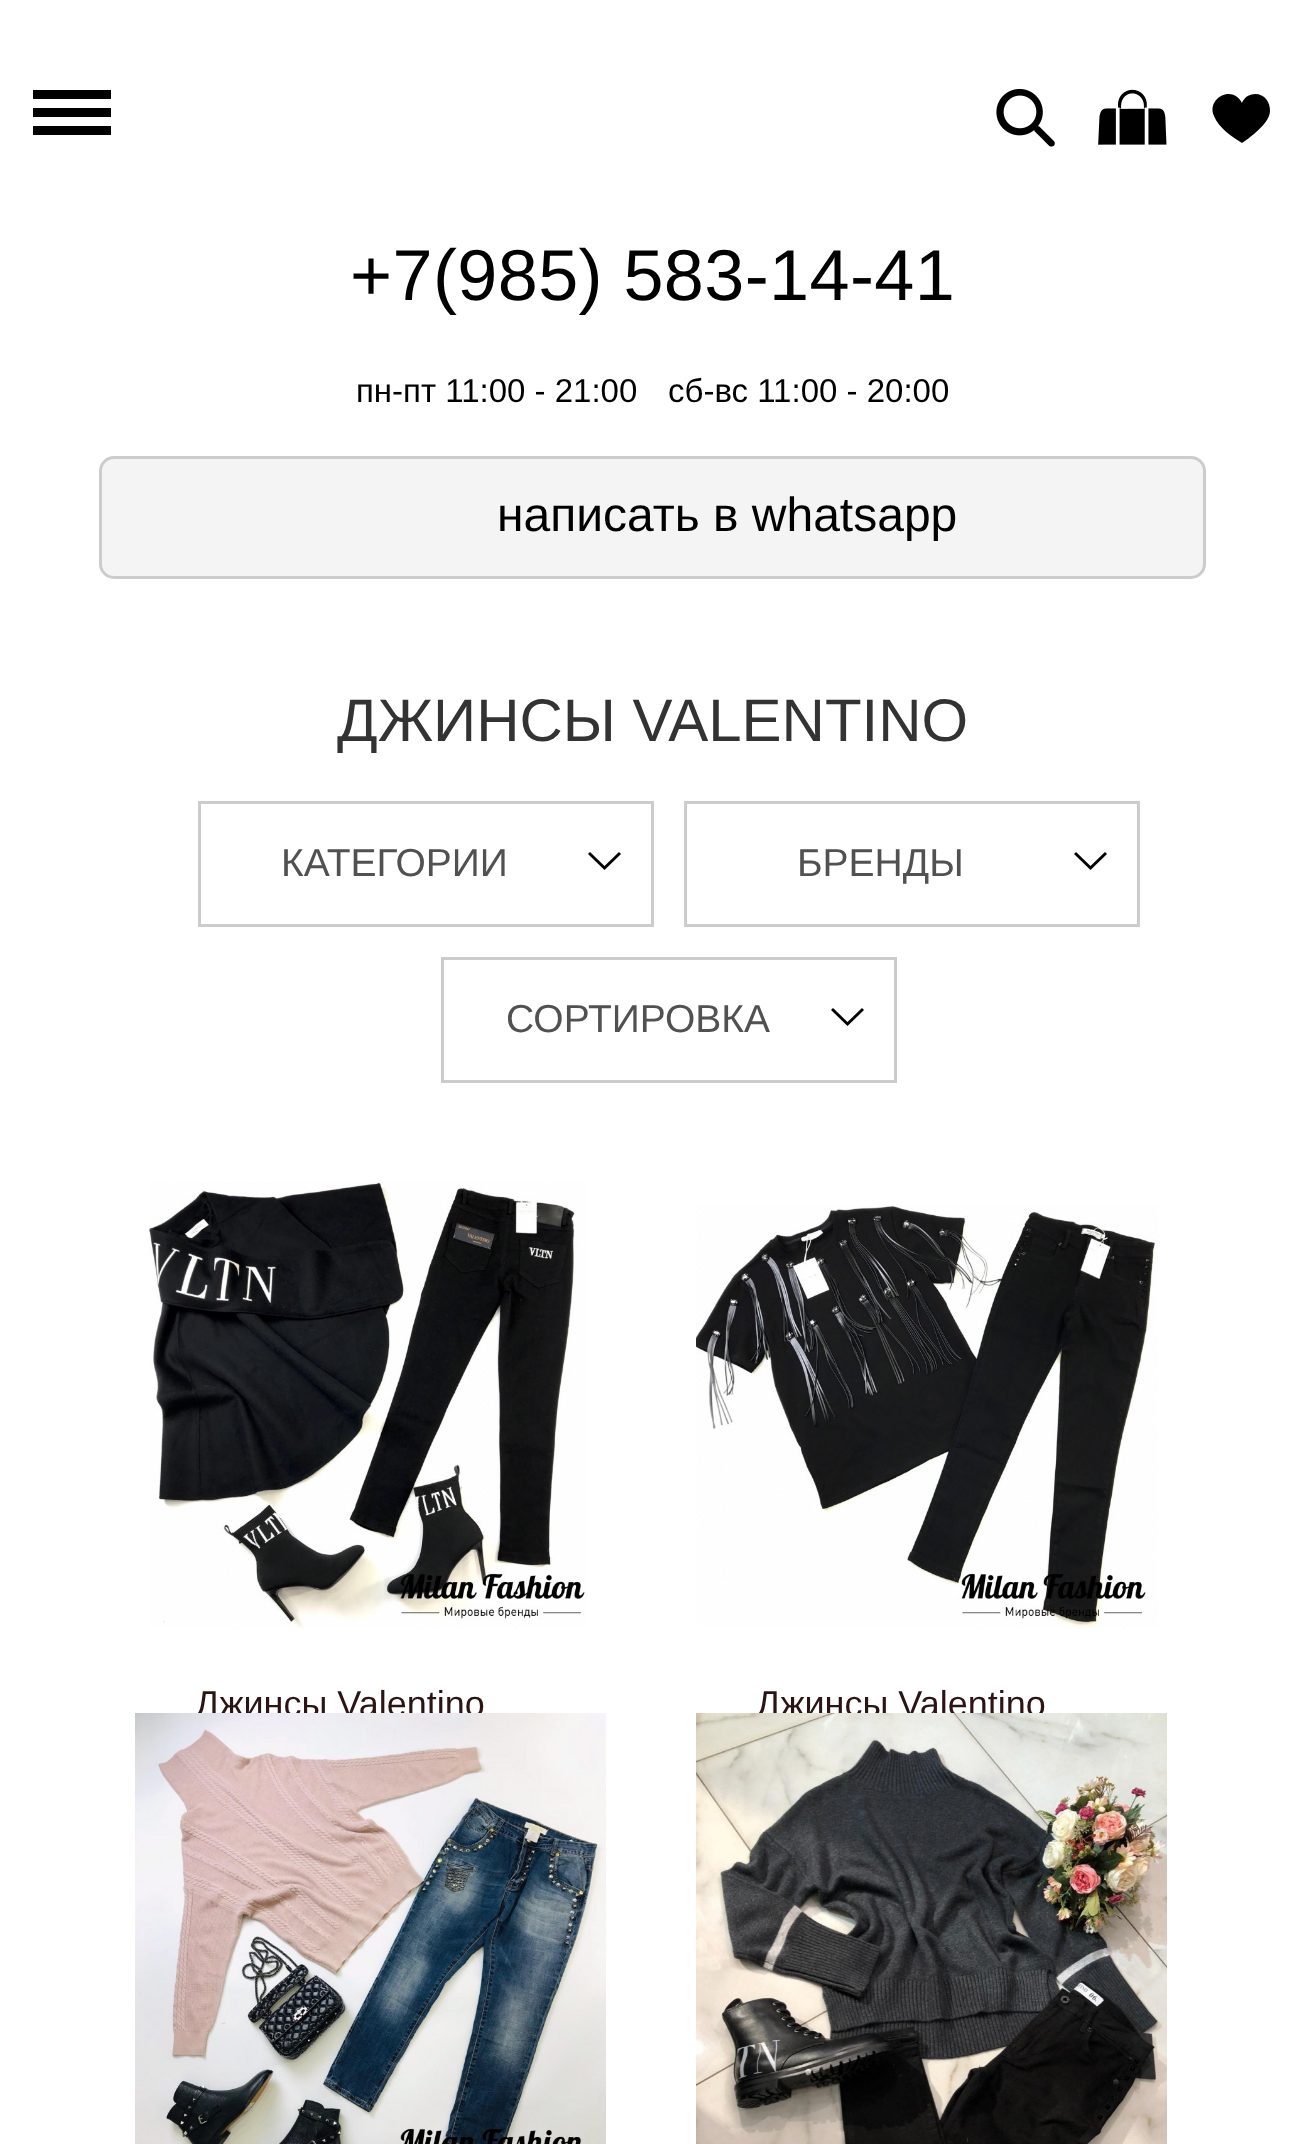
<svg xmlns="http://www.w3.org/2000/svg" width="1305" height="2144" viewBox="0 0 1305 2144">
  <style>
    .t1 { font: 72px Liberation Sans; letter-spacing: 0.4px; fill: #000; }
    .t2 { font: 33px Liberation Sans; fill: #000; }
    .t3 { font: 48px Liberation Sans; fill: #000; }
    .t4 { font: 60px Liberation Sans; fill: #333; }
    .t5 { font: 39px Liberation Sans; fill: #515151; }
    .t6 { font: 36px Liberation Sans; fill: #2b1413; }
  </style>
  <rect width="100%" height="100%" fill="#fff"/>
  <rect x="33" y="90" width="78" height="9" fill="#000"/>
  <rect x="33" y="108" width="78" height="9" fill="#000"/>
  <rect x="33" y="126" width="78" height="9" fill="#000"/>
  <image x="996" y="88" width="59" height="59" href="images/1.png"/>
  <image x="1098" y="89" width="69" height="56" href="images/2.png"/>
  <path d="M1255 94C1245 94 1242 103 1242 103C1233 84 1206 98 1214 116C1218 127 1232 137 1242 143C1242 143 1270 125 1270 111C1270 102 1265 94 1255 94Z" fill="#000"/>
  <text x="350" y="300" class="t1">+7(985) 583-14-41</text>
  <text x="356" y="402" class="t2">пн-пт 11:00 - 21:00</text>
  <text x="668" y="402" class="t2">сб-вс 11:00 - 20:00</text>
  <rect x="100.5" y="457.5" width="1104" height="120" rx="13.5" fill="#f4f4f4" stroke="#ccc" stroke-width="3"/>
  <text x="497" y="531" class="t3">написать в whatsapp</text>
  <text x="337" y="741" class="t4">ДЖИНСЫ VALENTINO</text>
  <rect x="199.5" y="802.5" width="453" height="123" fill="none" stroke="#ccc" stroke-width="3"/>
  <text x="281" y="876" class="t5">КАТЕГОРИИ</text>
  <path d="M619 852L604.5 866L590 852L588 854L604.5 870L621 854Z" fill="#000"/>
  <rect x="685.5" y="802.5" width="453" height="123" fill="none" stroke="#ccc" stroke-width="3"/>
  <text x="797" y="876" class="t5">БРЕНДЫ</text>
  <path d="M1105 852L1090.5 866L1076 852L1074 854L1090.5 870L1107 854Z" fill="#000"/>
  <rect x="442.5" y="958.5" width="453" height="123" fill="none" stroke="#ccc" stroke-width="3"/>
  <text x="506" y="1032" class="t5">СОРТИРОВКА</text>
  <path d="M862 1008L847.5 1022L833 1008L831 1010L847.5 1026L864 1010Z" fill="#000"/>
  <image x="149" y="1182" width="437" height="447" href="images/3.png"/>
  <text x="195" y="1716" class="t6">Джинсы Valentino</text>
  <image x="696" y="1205" width="462" height="424" href="images/4.png"/>
  <text x="756" y="1716" class="t6">Джинсы Valentino</text>
  <image x="135" y="1713" width="471" height="431" href="images/5.png"/>
  <image x="696" y="1713" width="471" height="431" href="images/6.png"/>
</svg>
